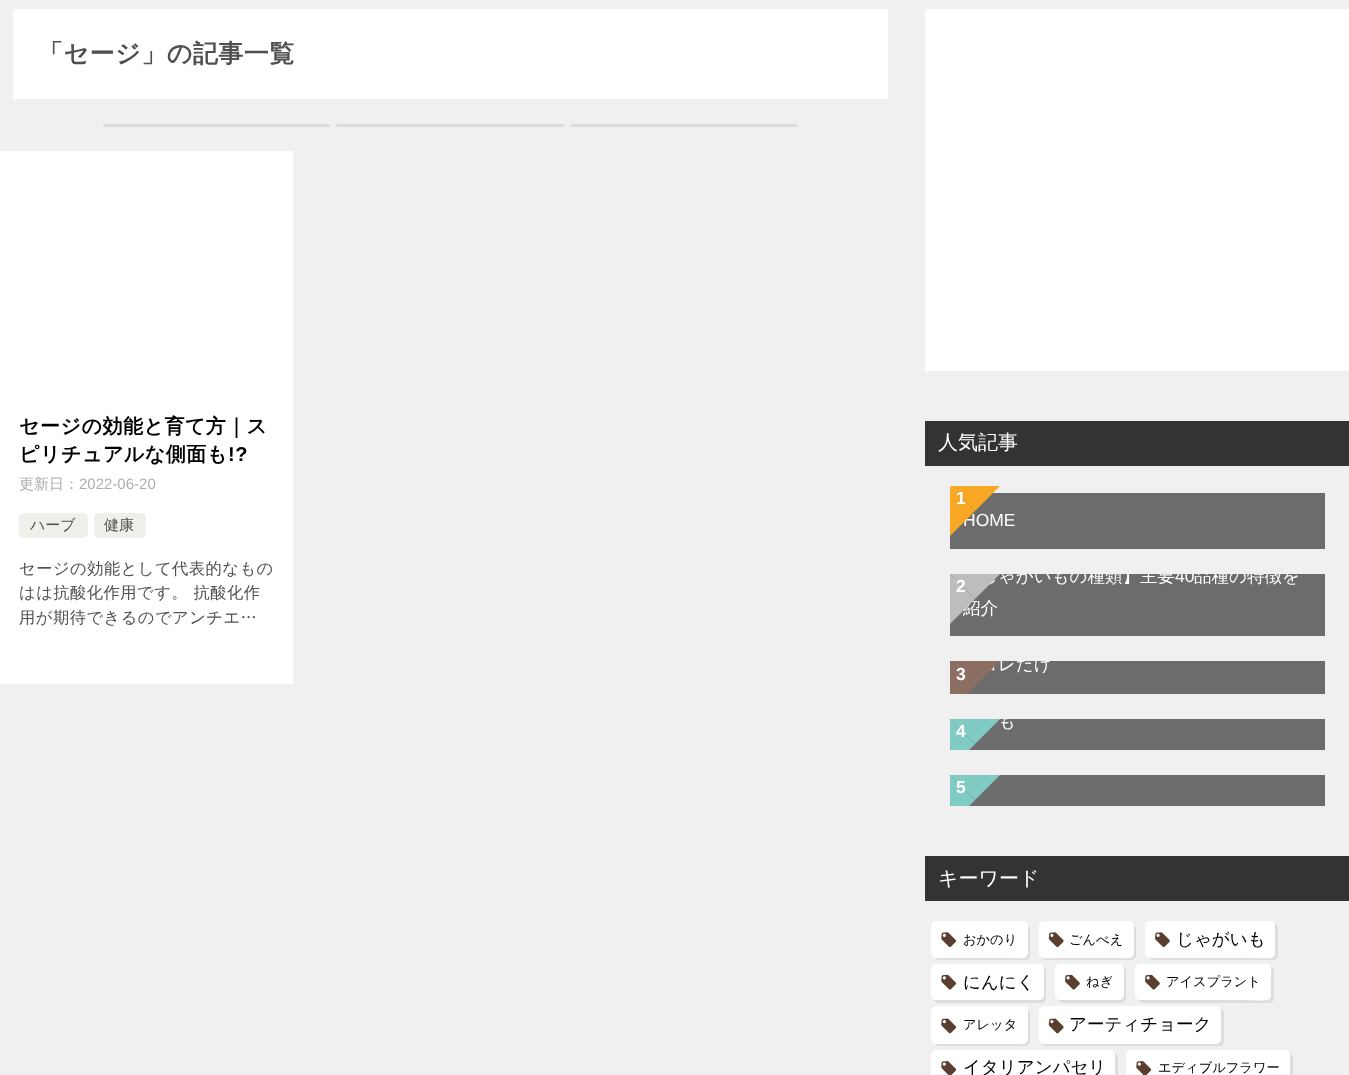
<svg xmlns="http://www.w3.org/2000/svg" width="1349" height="1075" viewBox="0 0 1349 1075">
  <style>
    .t1 { font: bold 25px WenQuanYi Zen Hei; letter-spacing: 0.5px; fill: #505050; }
    .t2 { font: bold 20px WenQuanYi Zen Hei; letter-spacing: 0.5px; fill: #000; }
    .t3 { font: bold 20px Liberation Sans; letter-spacing: 0.5px; fill: #000; }
    .t4 { font: 500 15px WenQuanYi Zen Hei; fill: #adadad; }
    .t5 { font: 15px Liberation Sans; fill: #adadad; }
    .t6 { font: 500 15px WenQuanYi Zen Hei; fill: #505050; }
    .t7 { font: 500 16.25px WenQuanYi Zen Hei; letter-spacing: 0.5px; fill: #505050; }
    .t8 { font: 500 20px WenQuanYi Zen Hei; fill: #fff; }
    .t9 { font: 17.5px Liberation Sans; fill: #fff; }
    .t10 { font: bold 17.5px Liberation Sans; fill: #fff; }
    .t11 { font: 500 17.5px WenQuanYi Zen Hei; fill: #fff; }
    .t12 { font: 500 13.25px WenQuanYi Zen Hei; fill: #000; }
    .t13 { font: 500 17.5px WenQuanYi Zen Hei; fill: #000; }
  </style>
  <defs>
    <clipPath id="clip1"><rect x="950" y="574" width="375" height="62"/></clipPath>
    <clipPath id="clip2"><rect x="950" y="661" width="375" height="33"/></clipPath>
    <clipPath id="clip3"><rect x="950" y="719" width="375" height="31"/></clipPath>
    <clipPath id="clip4"><rect x="950" y="775" width="375" height="31"/></clipPath>
  </defs>
  <rect width="100%" height="100%" fill="#f0f0f0"/>
  <rect x="13" y="9" width="875" height="90" fill="#fff"/>
  <text x="38" y="62" class="t1">「セージ」の記事一覧</text>
  <rect x="103" y="124" width="227" height="3" rx="1.5" fill="#ddd"/>
  <rect x="336" y="124" width="228" height="3" rx="1.5" fill="#ddd"/>
  <rect x="570" y="124" width="228" height="3" rx="1.5" fill="#ddd"/>
  <rect x="0" y="151" width="293" height="533" fill="#fff"/>
  <text x="19" y="433" class="t2">セージの効能と育て方｜ス</text>
  <text x="19" y="461" class="t2">ピリチュアルな側面も</text>
  <text x="228" y="461" class="t3">!?</text>
  <text x="19" y="489" class="t4">更新日：</text>
  <text x="79" y="489" class="t5">2022-06-20</text>
  <rect x="19" y="513" width="69" height="25" rx="5" fill="#f0efe9"/>
  <text x="30" y="530" class="t6">ハーブ</text>
  <rect x="94" y="513" width="52" height="25" rx="5" fill="#f0efe9"/>
  <text x="104" y="530" class="t6">健康</text>
  <text x="19" y="574" class="t7">セージの効能として代表的なもの</text>
  <text x="19" y="598" class="t7">はは抗酸化作用です。 抗酸化作</text>
  <text x="19" y="623" class="t7">用が期待できるのでアンチエ…</text>
  <rect x="925" y="9" width="424" height="362" fill="#fff"/>
  <rect x="925" y="421" width="424" height="45" fill="#333"/>
  <text x="938" y="449" class="t8">人気記事</text>
  <rect x="950" y="493" width="375" height="56" fill="#6c6c6c"/>
  <path d="M950 486H1000L975 511Z" fill="#f9a825"/>
  <text x="963" y="526" class="t9">HOME</text>
  <path d="M950 536V486L975 511Z" fill="#f9a825"/>
  <text x="956" y="504" class="t10">1</text>
  <rect x="950" y="574" width="375" height="62" fill="#6c6c6c"/>
  <g clip-path="url(#clip1)">
    <text x="980" y="582" class="t11">じゃがいもの種類】主要</text>
  </g>
  <path d="M950 574H1000L975 599Z" fill="#bdbdbd"/>
  <text x="963" y="614" class="t11">紹介</text>
  <path d="M950 624V574L975 599Z" fill="#bdbdbd"/>
  <text x="956" y="592" class="t10">2</text>
  <g clip-path="url(#clip1)">
    <text x="1175" y="582" class="t9">40</text>
    <text x="1194" y="582" class="t11">品種の特徴を</text>
  </g>
  <rect x="950" y="661" width="375" height="33" fill="#6c6c6c"/>
  <g clip-path="url(#clip2)">
    <text x="980" y="670" class="t11">コレだけ</text>
  </g>
  <path d="M950 661H1000L975 686Z" fill="#8d6e63"/>
  <g clip-path="url(#clip2)">
    <path d="M950 711V661L975 686Z" fill="#8d6e63"/>
  </g>
  <text x="956" y="680" class="t10">3</text>
  <rect x="950" y="719" width="375" height="31" fill="#6c6c6c"/>
  <path d="M950 719H1000L975 744Z" fill="#80cbc4"/>
  <g clip-path="url(#clip3)">
    <path d="M950 769V719L975 744Z" fill="#80cbc4"/>
    <text x="998" y="727" class="t11">も</text>
  </g>
  <text x="956" y="737" class="t10">4</text>
  <rect x="950" y="775" width="375" height="31" fill="#6c6c6c"/>
  <path d="M950 775H1000L975 800Z" fill="#80cbc4"/>
  <g clip-path="url(#clip4)">
    <path d="M950 825V775L975 800Z" fill="#80cbc4"/>
  </g>
  <text x="956" y="793" class="t10">5</text>
  <rect x="925" y="856" width="424" height="45" fill="#333"/>
  <text x="938" y="885" class="t8">キーワード</text>
  <path d="M935 957C935 959 937 960 939 960H1025C1028 960 1030 958 1030 955V929C1030 927 1029 925 1027 925L1028 944C1028 961 1027 958 1008 958Z" fill="#ddd"/>
  <rect x="931" y="921" width="97" height="37" rx="5" fill="#fff"/>
  <image x="941" y="932" width="16" height="16" href="images/1.png"/>
  <text x="963" y="944" class="t12">おかのり</text>
  <path d="M1041 957C1042 959 1044 960 1046 960H1131C1134 960 1136 958 1136 955V929C1136 927 1135 926 1133 925L1134 944C1134 961 1133 958 1115 958H1058C1052 958 1046 960 1041 957Z" fill="#ddd"/>
  <rect x="1039" y="921" width="95" height="37" rx="5" fill="#fff"/>
  <image x="1048" y="932" width="16" height="16" href="images/2.png"/>
  <text x="1069" y="944" class="t12">ごんべえ</text>
  <path d="M1149 957C1149 959 1151 960 1153 960H1273C1276 960 1278 958 1278 955V929C1278 927 1277 925 1275 924V954C1273 961 1257 958 1250 958Z" fill="#ddd"/>
  <rect x="1145" y="921" width="130" height="37" rx="5" fill="#fff"/>
  <image x="1155" y="932" width="15" height="16" href="images/3.png"/>
  <text x="1176" y="945" class="t13">じゃがいも</text>
  <path d="M934 1000C935 1002 937 1003 939 1003H1041C1044 1003 1046 1001 1046 998V971C1046 969 1045 967 1043 967L1044 969V995C1044 998 1042 1000 1039 1000H936Z" fill="#ddd"/>
  <rect x="931" y="964" width="113" height="36" rx="5" fill="#fff"/>
  <image x="941" y="974" width="16" height="16" href="images/4.png"/>
  <text x="963" y="988" class="t13">にんにく</text>
  <path d="M1058 1000C1059 1002 1061 1003 1063 1003H1121C1124 1003 1126 1001 1126 998V971C1126 969 1125 967 1123 967C1124 968 1124 971 1124 973V986C1124 1001 1124 1000 1109 1000Z" fill="#ddd"/>
  <rect x="1055" y="964" width="69" height="36" rx="5" fill="#fff"/>
  <image x="1065" y="974" width="15" height="16" href="images/5.png"/>
  <text x="1086" y="986" class="t12">ねぎ</text>
  <path d="M1138 1000C1139 1002 1141 1003 1143 1003H1269C1272 1003 1274 1001 1274 998V971C1274 969 1273 967 1271 966C1272 968 1271 971 1271 973V996C1270 1004 1252 1000 1245 1000Z" fill="#ddd"/>
  <rect x="1135" y="964" width="136" height="36" rx="5" fill="#fff"/>
  <image x="1145" y="974" width="15" height="16" href="images/5.png"/>
  <text x="1166" y="986" class="t12">アイスプラント</text>
  <path d="M935 1043C936 1045 937 1046 939 1046H1025C1028 1046 1030 1044 1030 1041V1014C1030 1012 1029 1010 1027 1010L1028 1030C1028 1047 1027 1044 1008 1044Z" fill="#ddd"/>
  <rect x="931" y="1006" width="97" height="38" rx="5" fill="#fff"/>
  <image x="941" y="1018" width="16" height="16" href="images/6.png"/>
  <text x="963" y="1029" class="t12">アレッタ</text>
  <path d="M1042 1043C1042 1045 1044 1046 1046 1046H1219C1222 1046 1224 1044 1224 1041V1014C1224 1012 1223 1010 1221 1009V1030C1221 1034 1223 1044 1216 1044H1044Z" fill="#ddd"/>
  <rect x="1039" y="1006" width="182" height="38" rx="5" fill="#fff"/>
  <image x="1048" y="1018" width="16" height="16" href="images/7.png"/>
  <text x="1069" y="1030" class="t13">アーティチョーク</text>
  <path d="M934 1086C935 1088 937 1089 939 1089H1113C1116 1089 1118 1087 1118 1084V1058C1118 1056 1117 1054 1115 1053V1072C1115 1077 1117 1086 1110 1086Z" fill="#ddd"/>
  <rect x="931" y="1050" width="184" height="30" rx="5" fill="#fff"/>
  <image x="941" y="1061" width="16" height="14" href="images/8.png"/>
  <text x="963" y="1073" class="t13">イタリアンパセリ</text>
  <path d="M1129 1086C1130 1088 1132 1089 1134 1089H1288C1291 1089 1293 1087 1293 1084V1058C1293 1056 1292 1054 1290 1053V1072C1290 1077 1292 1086 1285 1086Z" fill="#ddd"/>
  <rect x="1126" y="1050" width="164" height="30" rx="5" fill="#fff"/>
  <image x="1136" y="1061" width="16" height="14" href="images/8.png"/>
  <text x="1158" y="1072" class="t12">エディブルフラワー</text>
</svg>
